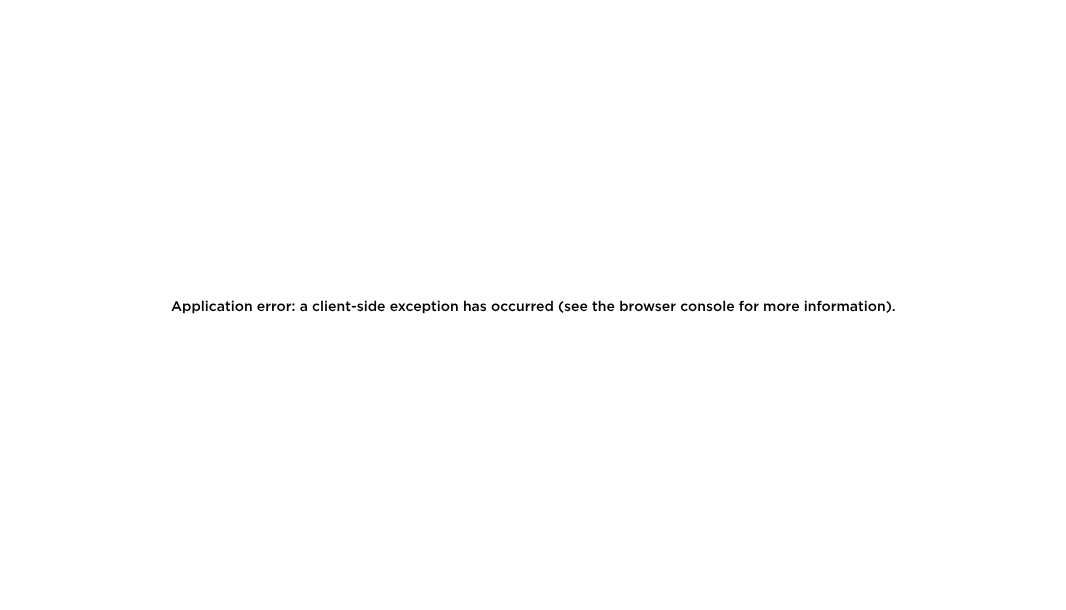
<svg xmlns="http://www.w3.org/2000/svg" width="1066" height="610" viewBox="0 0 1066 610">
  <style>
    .t1 { font: 300 14px 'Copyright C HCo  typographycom'; fill: #000; }
  </style>
  <rect width="100%" height="100%" fill="#fff"/>
  <text x="171" y="311" class="t1">Application error: a client-side exception has occurred (see the browser console for more information).</text>
</svg>
